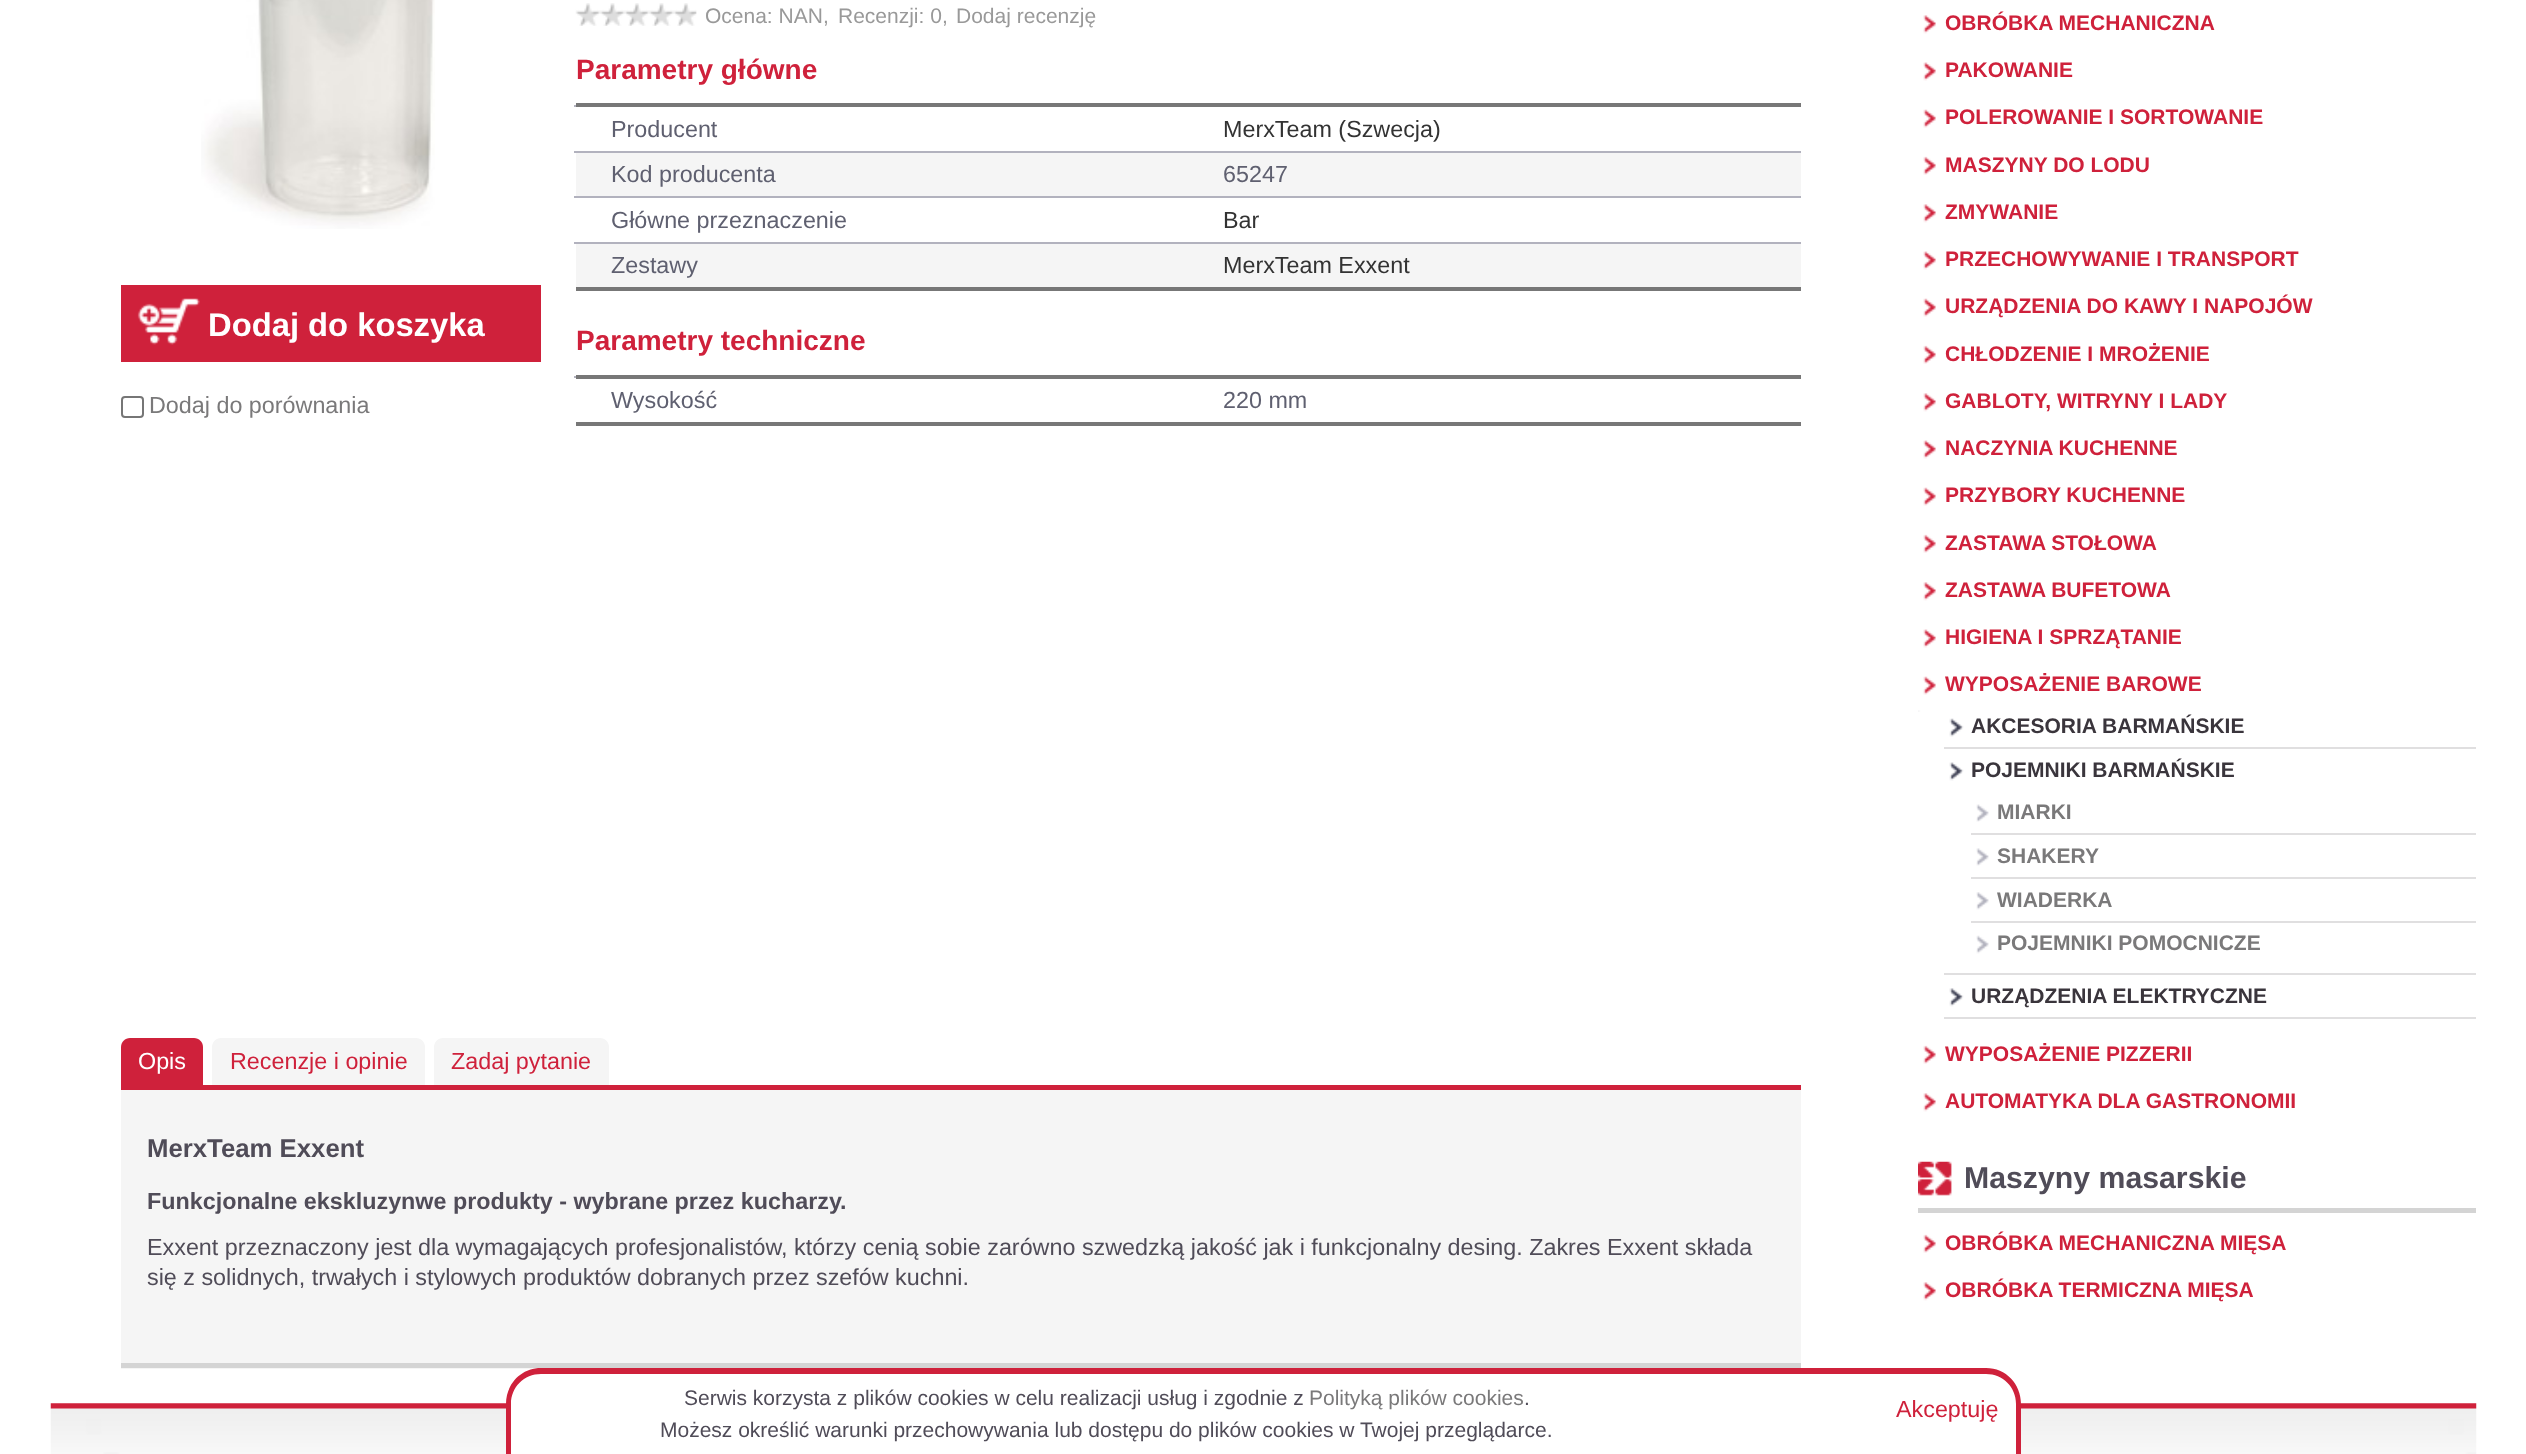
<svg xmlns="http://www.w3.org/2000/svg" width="2526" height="1454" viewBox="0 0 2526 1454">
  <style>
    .t1 { font: bold 32.75px Liberation Sans; fill: #fff; }
    .t2 { font: 23.33px Liberation Sans; fill: #7a797a; }
    .t3 { font: 21px Liberation Sans; fill: #999; }
    .t4 { font: bold 28px Liberation Sans; fill: #cf213b; }
    .t5 { font: 23.33px Liberation Sans; fill: #5f6070; }
    .t6 { font: 23.33px Liberation Sans; fill: #333; }
    .t7 { font: 23.33px Liberation Sans; fill: #fff; }
    .t8 { font: 23.33px Liberation Sans; fill: #cf213b; }
    .t9 { font: bold 25.75px Liberation Sans; fill: #504c58; }
    .t10 { font: bold 23.33px Liberation Sans; fill: #504c58; }
    .t11 { font: 23.33px Liberation Sans; fill: #504c58; }
    .t12 { font: bold 21px Liberation Sans; fill: #cf213b; }
    .t13 { font: bold 21px Liberation Sans; fill: #3a353c; }
    .t14 { font: bold 21px Liberation Sans; fill: #7a797a; }
    .t15 { font: bold 30.25px Liberation Sans; fill: #504c58; }
    .t16 { font: 21px Liberation Sans; fill: #504c58; }
    .t17 { font: 21px Liberation Sans; fill: #7a797a; }
  </style>
  <rect width="100%" height="100%" fill="#fff"/>
  <image x="201" y="0" width="234" height="229" href="images/1.png"/>
  <rect x="121" y="285" width="420" height="77" fill="#cf213b"/>
  <image x="137" y="298" width="63" height="47" href="images/2.png"/>
  <text x="208" y="336" class="t1">Dodaj do koszyka</text>
  <rect x="122" y="397" width="21" height="20" rx="3" fill="none" stroke="#767676" stroke-width="2"/>
  <text x="149" y="413" class="t2">Dodaj do porównania</text>
  <image x="575" y="3" width="122" height="23" href="images/3.png"/>
  <text x="705" y="23" class="t3">Ocena: NAN,</text>
  <text x="838" y="23" class="t3">Recenzji: 0,</text>
  <text x="956" y="23" class="t3">Dodaj recenzję</text>
  <text x="576" y="79" class="t4">Parametry główne</text>
  <rect x="576" y="103" width="1225" height="4" fill="#777"/>
  <rect x="576" y="287" width="1225" height="4" fill="#777"/>
  <rect x="574" y="105" width="2" height="2" fill="#b2b2be"/>
  <text x="611" y="137" class="t5">Producent</text>
  <text x="1223" y="137" class="t6">MerxTeam (Szwecja)</text>
  <rect x="576" y="153" width="1225" height="43" fill="#f5f5f5"/>
  <text x="611" y="182" class="t5">Kod producenta</text>
  <rect x="574" y="151" width="1227" height="2" fill="#b2b2be"/>
  <text x="1223" y="182" class="t5">65247</text>
  <text x="611" y="228" class="t5">Główne przeznaczenie</text>
  <rect x="574" y="196" width="1227" height="2" fill="#b2b2be"/>
  <text x="1223" y="228" class="t6">Bar</text>
  <rect x="576" y="244" width="1225" height="43" fill="#f5f5f5"/>
  <text x="611" y="273" class="t5">Zestawy</text>
  <rect x="574" y="242" width="1227" height="2" fill="#b2b2be"/>
  <text x="1223" y="273" class="t6">MerxTeam Exxent</text>
  <text x="576" y="350" class="t4">Parametry techniczne</text>
  <rect x="576" y="375" width="1225" height="4" fill="#777"/>
  <rect x="576" y="422" width="1225" height="4" fill="#777"/>
  <rect x="574" y="376" width="2" height="2" fill="#b2b2be"/>
  <text x="611" y="408" class="t5">Wysokość</text>
  <text x="1223" y="408" class="t5">220 mm</text>
  <path d="M130 1038H194C199 1038 203 1042 203 1047V1085H121V1047C121 1042 125 1038 130 1038Z" fill="#cf213b"/>
  <text x="138" y="1069" class="t7">Opis</text>
  <path d="M221 1038H416C421 1038 425 1042 425 1047V1085H212V1047C212 1042 216 1038 221 1038Z" fill="#f5f5f5"/>
  <text x="230" y="1069" class="t8">Recenzje i opinie</text>
  <path d="M443 1038H600C605 1038 609 1042 609 1047V1085H434V1047C434 1042 438 1038 443 1038Z" fill="#f5f5f5"/>
  <text x="451" y="1069" class="t8">Zadaj pytanie</text>
  <rect x="121" y="1090" width="1680" height="279" fill="#f5f5f5"/>
  <rect x="121" y="1085" width="1680" height="5" fill="#cf213b"/>
  <rect x="121" y="1363" width="1680" height="5" fill="#d4d4d4"/>
  <text x="147" y="1157" class="t9">MerxTeam Exxent</text>
  <text x="147" y="1209" class="t10">Funkcjonalne ekskluzynwe produkty - wybrane przez kucharzy.</text>
  <text x="147" y="1255" class="t11">Exxent przeznaczony jest dla wymagających profesjonalistów, którzy cenią sobie zarówno szwedzką jakość jak i funkcjonalny desing. Zakres Exxent składa</text>
  <text x="147" y="1285" class="t11">się z solidnych, trwałych i stylowych produktów dobranych przez szefów kuchni.</text>
  <image x="1923" y="15" width="13" height="19" href="images/4.png"/>
  <text x="1945" y="30" class="t12">OBRÓBKA MECHANICZNA</text>
  <image x="1923" y="62" width="13" height="19" href="images/5.png"/>
  <text x="1945" y="77" class="t12">PAKOWANIE</text>
  <image x="1923" y="109" width="13" height="19" href="images/6.png"/>
  <text x="1945" y="124" class="t12">POLEROWANIE I SORTOWANIE</text>
  <image x="1923" y="156" width="13" height="19" href="images/7.png"/>
  <text x="1945" y="172" class="t12">MASZYNY DO LODU</text>
  <image x="1923" y="204" width="13" height="19" href="images/4.png"/>
  <text x="1945" y="219" class="t12">ZMYWANIE</text>
  <image x="1923" y="251" width="13" height="19" href="images/5.png"/>
  <text x="1945" y="266" class="t12">PRZECHOWYWANIE I TRANSPORT</text>
  <image x="1923" y="298" width="13" height="19" href="images/6.png"/>
  <text x="1945" y="313" class="t12">URZĄDZENIA DO KAWY I NAPOJÓW</text>
  <image x="1923" y="345" width="13" height="19" href="images/7.png"/>
  <text x="1945" y="361" class="t12">CHŁODZENIE I MROŻENIE</text>
  <image x="1923" y="393" width="13" height="19" href="images/4.png"/>
  <text x="1945" y="408" class="t12">GABLOTY, WITRYNY I LADY</text>
  <image x="1923" y="440" width="13" height="19" href="images/5.png"/>
  <text x="1945" y="455" class="t12">NACZYNIA KUCHENNE</text>
  <image x="1923" y="487" width="13" height="19" href="images/6.png"/>
  <text x="1945" y="502" class="t12">PRZYBORY KUCHENNE</text>
  <image x="1923" y="534" width="13" height="19" href="images/7.png"/>
  <text x="1945" y="550" class="t12">ZASTAWA STOŁOWA</text>
  <image x="1923" y="582" width="13" height="19" href="images/4.png"/>
  <text x="1945" y="597" class="t12">ZASTAWA BUFETOWA</text>
  <image x="1923" y="629" width="13" height="19" href="images/5.png"/>
  <text x="1945" y="644" class="t12">HIGIENA I SPRZĄTANIE</text>
  <image x="1918" y="676" width="18" height="36" href="images/8.png"/>
  <text x="1945" y="691" class="t12">WYPOSAŻENIE BAROWE</text>
  <image x="1949" y="718" width="15" height="19" href="images/9.png"/>
  <rect x="1944" y="747" width="532" height="2" fill="#e0dfe0"/>
  <text x="1971" y="733" class="t13">AKCESORIA BARMAŃSKIE</text>
  <image x="1949" y="762" width="15" height="19" href="images/10.png"/>
  <rect x="1944" y="973" width="532" height="2" fill="#e0dfe0"/>
  <text x="1971" y="777" class="t13">POJEMNIKI BARMAŃSKIE</text>
  <image x="1976" y="804" width="13" height="18" href="images/11.png"/>
  <rect x="1971" y="833" width="505" height="2" fill="#e0dfe0"/>
  <text x="1997" y="819" class="t14">MIARKI</text>
  <image x="1976" y="848" width="13" height="18" href="images/12.png"/>
  <rect x="1971" y="877" width="505" height="2" fill="#e0dfe0"/>
  <text x="1997" y="863" class="t14">SHAKERY</text>
  <image x="1976" y="892" width="13" height="18" href="images/13.png"/>
  <rect x="1971" y="921" width="505" height="2" fill="#e0dfe0"/>
  <text x="1997" y="907" class="t14">WIADERKA</text>
  <image x="1976" y="935" width="13" height="19" href="images/14.png"/>
  <text x="1997" y="950" class="t14">POJEMNIKI POMOCNICZE</text>
  <image x="1949" y="988" width="15" height="19" href="images/15.png"/>
  <rect x="1944" y="1017" width="532" height="2" fill="#e0dfe0"/>
  <text x="1971" y="1003" class="t13">URZĄDZENIA ELEKTRYCZNE</text>
  <image x="1923" y="1045" width="13" height="19" href="images/7.png"/>
  <text x="1945" y="1061" class="t12">WYPOSAŻENIE PIZZERII</text>
  <image x="1923" y="1093" width="13" height="19" href="images/4.png"/>
  <text x="1945" y="1108" class="t12">AUTOMATYKA DLA GASTRONOMII</text>
  <image x="1918" y="1161" width="34" height="35" href="images/16.png"/>
  <rect x="1918" y="1208" width="558" height="5" fill="#d4d4d4"/>
  <text x="1964" y="1188" class="t15">Maszyny masarskie</text>
  <image x="1923" y="1234" width="13" height="19" href="images/7.png"/>
  <text x="1945" y="1250" class="t12">OBRÓBKA MECHANICZNA MIĘSA</text>
  <image x="1923" y="1282" width="13" height="19" href="images/4.png"/>
  <text x="1945" y="1297" class="t12">OBRÓBKA TERMICZNA MIĘSA</text>
  <image x="50" y="1403" width="2427" height="51" href="images/17.png"/>
  <path d="M541 1369H1986C2005.5 1369 2021 1384.5 2021 1404V1454H506V1404C506 1384.5 521.5 1369 541 1369Z" fill="#fff"/>
  <path d="M541 1368H1986C2006 1368 2021 1384 2021 1404V1454H506V1404C506 1384 521 1368 541 1368ZM541 1374H1986C2003 1374 2016 1387 2016 1404V1454H511V1404C511 1387 524 1374 541 1374Z" fill="#cf213b" fill-rule="evenodd"/>
  <text x="684" y="1405" class="t16">Serwis korzysta z plików cookies w celu realizacji usług i zgodnie z</text>
  <text x="1309" y="1405" class="t17">Polityką plików cookies</text>
  <text x="1524" y="1405" class="t16">.</text>
  <text x="660" y="1437" class="t16">Możesz określić warunki przechowywania lub dostępu do plików cookies w Twojej przeglądarce.</text>
  <text x="1896" y="1417" class="t8">Akceptuję</text>
</svg>
